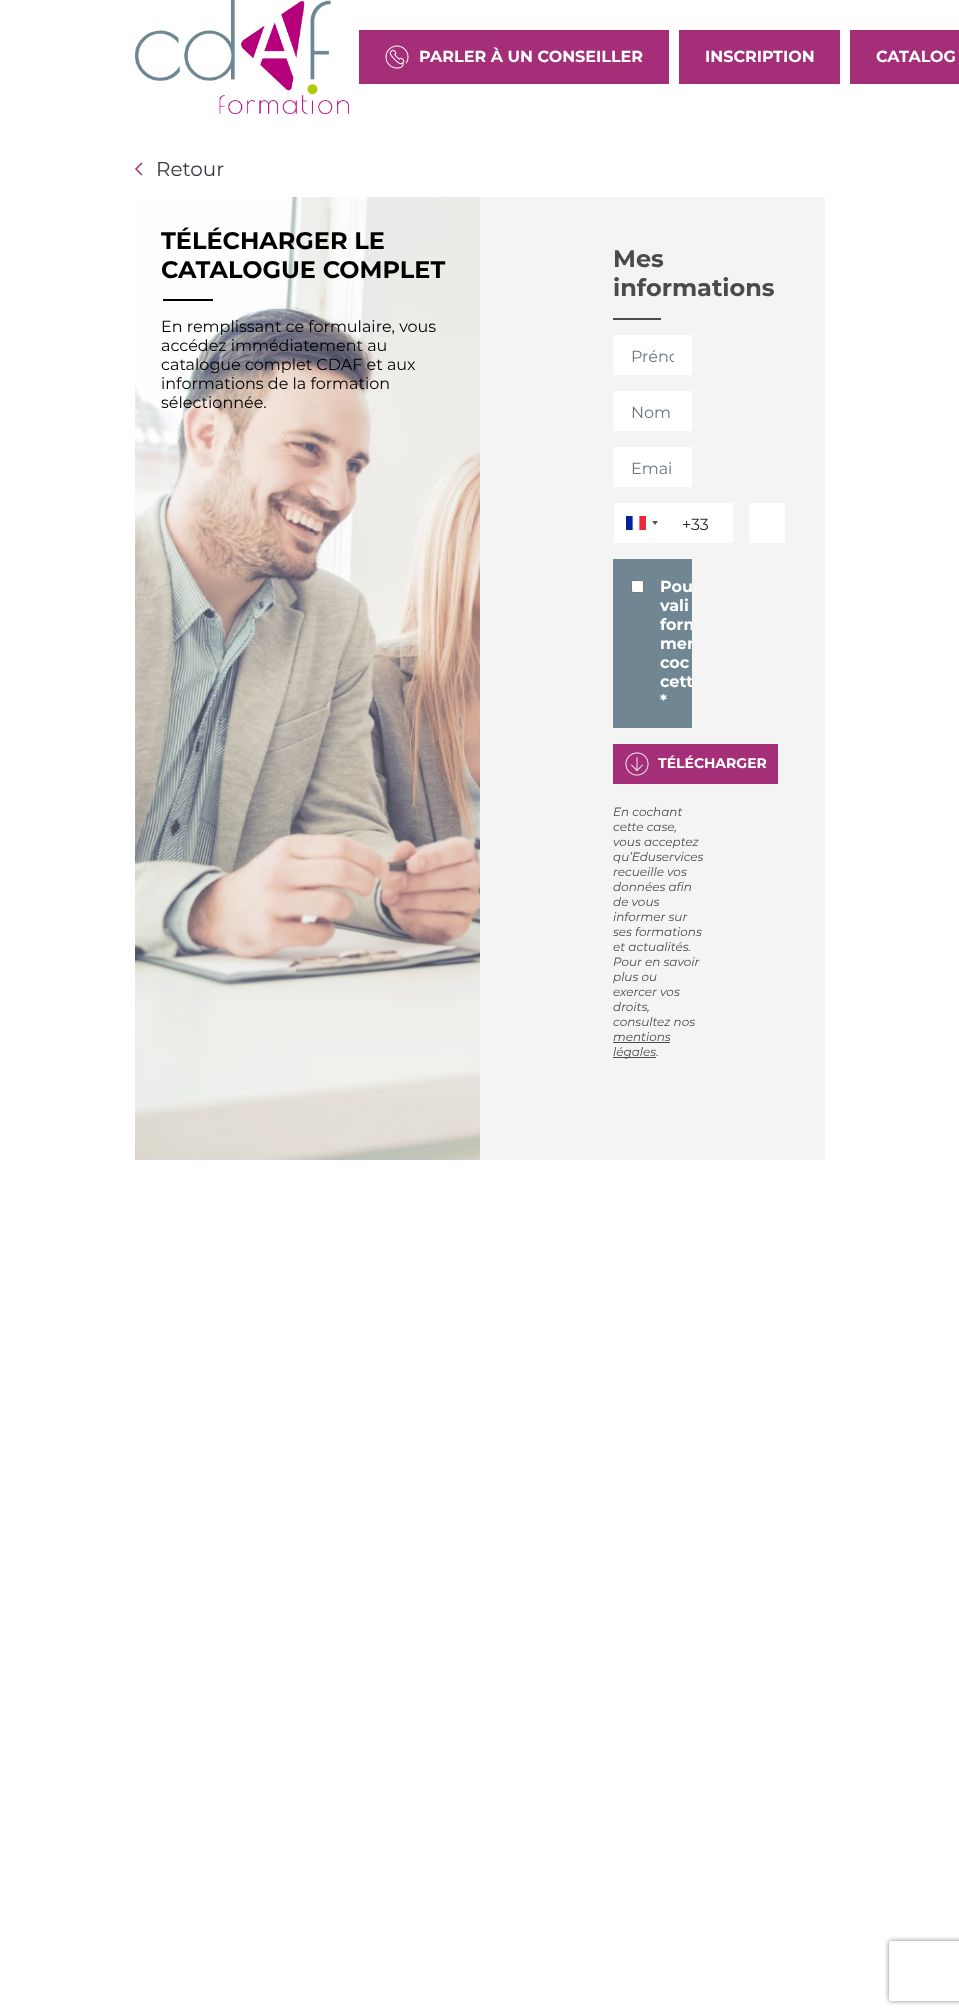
<svg xmlns="http://www.w3.org/2000/svg" width="959" height="2015" viewBox="0 0 959 2015">
  <style>
    .t1 { font: bold 16px Montserrat; fill: #fff; }
    .t2 { font: 20px Montserrat; fill: #343a40; }
    .t3 { font: bold 24px Montserrat; fill: #000; }
    .t4 { font: 16px Montserrat; fill: #000; }
    .t5 { font: bold 24px Montserrat; fill: #4a4c49; }
    .t6 { font: 16px Montserrat; fill: #6c757d; }
    .t7 { font: 16px Montserrat; fill: #272727; }
    .t8 { font: bold 14px Montserrat; fill: #fff; }
    .t9 { font: italic 12px Montserrat; fill: #4a4c49; }
  </style>
  <defs>
    <clipPath id="clip1"><rect x="631" y="347" width="43" height="19"/></clipPath>
    <clipPath id="clip2"><rect x="613" y="559" width="79" height="169"/></clipPath>
    <clipPath id="clip3"><path d="M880 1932H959V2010H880ZM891 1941H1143C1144 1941 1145 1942 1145 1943V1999C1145 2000 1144 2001 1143 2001H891C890 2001 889 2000 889 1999V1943C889 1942 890 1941 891 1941Z" clip-rule="evenodd"/></clipPath>
  </defs>
  <rect width="100%" height="100%" fill="#fff"/>
  <image x="135" y="0" width="214" height="114" href="images/1.png"/>
  <rect x="359" y="30" width="310" height="54" fill="#a42f78"/>
  <image x="385" y="45" width="24" height="24" href="images/2.png"/>
  <text x="419" y="62" class="t1">PARLER À UN CONSEILLER</text>
  <rect x="679" y="30" width="161" height="54" fill="#a42f78"/>
  <text x="705" y="62" class="t1">INSCRIPTION</text>
  <rect x="850" y="30" width="109" height="54" fill="#a42f78"/>
  <text x="876" y="62" class="t1">CATALOG</text>
  <path d="M142 175L136 169L142 163" fill="none" stroke="#a42f78" stroke-width="1.5"/>
  <text x="156" y="176" class="t2">Retour</text>
  <image x="135" y="197" width="345" height="963" href="images/3.png"/>
  <text x="161" y="249" class="t3">TÉLÉCHARGER LE</text>
  <text x="161" y="278" class="t3">CATALOGUE COMPLET</text>
  <rect x="163" y="299" width="50" height="2" fill="#000"/>
  <text x="161" y="332" class="t4">En remplissant ce formulaire, vous</text>
  <text x="161" y="351" class="t4">accédez immédiatement au</text>
  <text x="161" y="370" class="t4">catalogue complet CDAF et aux</text>
  <text x="161" y="389" class="t4">informations de la formation</text>
  <text x="161" y="408" class="t4">sélectionnée.</text>
  <rect x="480" y="197" width="345" height="963" fill="#f4f4f4"/>
  <text x="613" y="267" class="t5">Mes</text>
  <text x="613" y="296" class="t5">informations</text>
  <rect x="613" y="318" width="48" height="2" fill="#4a4c49"/>
  <rect x="614" y="336" width="77" height="38" fill="#fff" stroke="#fff" stroke-width="2"/>
  <g clip-path="url(#clip1)">
    <text x="631" y="362" class="t6">Préno</text>
  </g>
  <rect x="614" y="392" width="77" height="38" fill="#fff" stroke="#fff" stroke-width="2"/>
  <text x="631" y="418" class="t6">Nom</text>
  <rect x="614" y="448" width="77" height="38" fill="#fff" stroke="#fff" stroke-width="2"/>
  <text x="631" y="474" class="t6">Emai</text>
  <rect x="614" y="503" width="119" height="40" fill="#fff"/>
  <rect x="626" y="516" width="20" height="14" fill="#888" filter="blur(0.5px)"/>
  <image x="626" y="516" width="20" height="14" href="images/4.png"/>
  <path d="M652 521H658L655 525Z" fill="#555"/>
  <text x="682" y="530" class="t7">+33</text>
  <rect x="750" y="504" width="34" height="38" fill="#fff" stroke="#fff" stroke-width="2"/>
  <rect x="613" y="559" width="79" height="169" fill="#708793"/>
  <rect x="631.5" y="580.5" width="12" height="12" rx="1.5" fill="#fff" stroke="#767676"/>
  <text x="660" y="592" class="t1">Pou</text>
  <text x="660" y="611" class="t1">vali</text>
  <g clip-path="url(#clip2)">
    <text x="660" y="630" class="t1">form</text>
    <text x="660" y="649" class="t1">mer</text>
  </g>
  <text x="660" y="668" class="t1">coc</text>
  <text x="660" y="687" class="t1">cett</text>
  <text x="660" y="706" class="t1">*</text>
  <rect x="613" y="744" width="165" height="40" fill="#a42f78"/>
  <image x="625" y="752" width="24" height="24" href="images/5.png"/>
  <text x="658" y="768" class="t8">TÉLÉCHARGER</text>
  <text x="613" y="816" class="t9">En cochant</text>
  <text x="613" y="831" class="t9">cette case,</text>
  <text x="613" y="846" class="t9">vous acceptez</text>
  <text x="613" y="861" class="t9">qu’Eduservices</text>
  <text x="613" y="876" class="t9">recueille vos</text>
  <text x="613" y="891" class="t9">données afin</text>
  <text x="613" y="906" class="t9">de vous</text>
  <text x="613" y="921" class="t9">informer sur</text>
  <text x="613" y="936" class="t9">ses formations</text>
  <text x="613" y="951" class="t9">et actualités.</text>
  <text x="613" y="966" class="t9">Pour en savoir</text>
  <text x="613" y="981" class="t9">plus ou</text>
  <text x="613" y="996" class="t9">exercer vos</text>
  <text x="613" y="1011" class="t9">droits,</text>
  <text x="613" y="1026" class="t9">consultez nos</text>
  <text x="613" y="1041" class="t9">mentions</text>
  <rect x="613" y="1042" width="57" height="1" fill="#4a4c49"/>
  <rect x="613" y="1057" width="43" height="1" fill="#4a4c49"/>
  <text x="613" y="1056" class="t9">légales.</text>
  <g clip-path="url(#clip3)">
    <rect x="889" y="1941" width="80" height="60" rx="2" fill="#808080" filter="blur(2.5px)"/>
  </g>
</svg>
